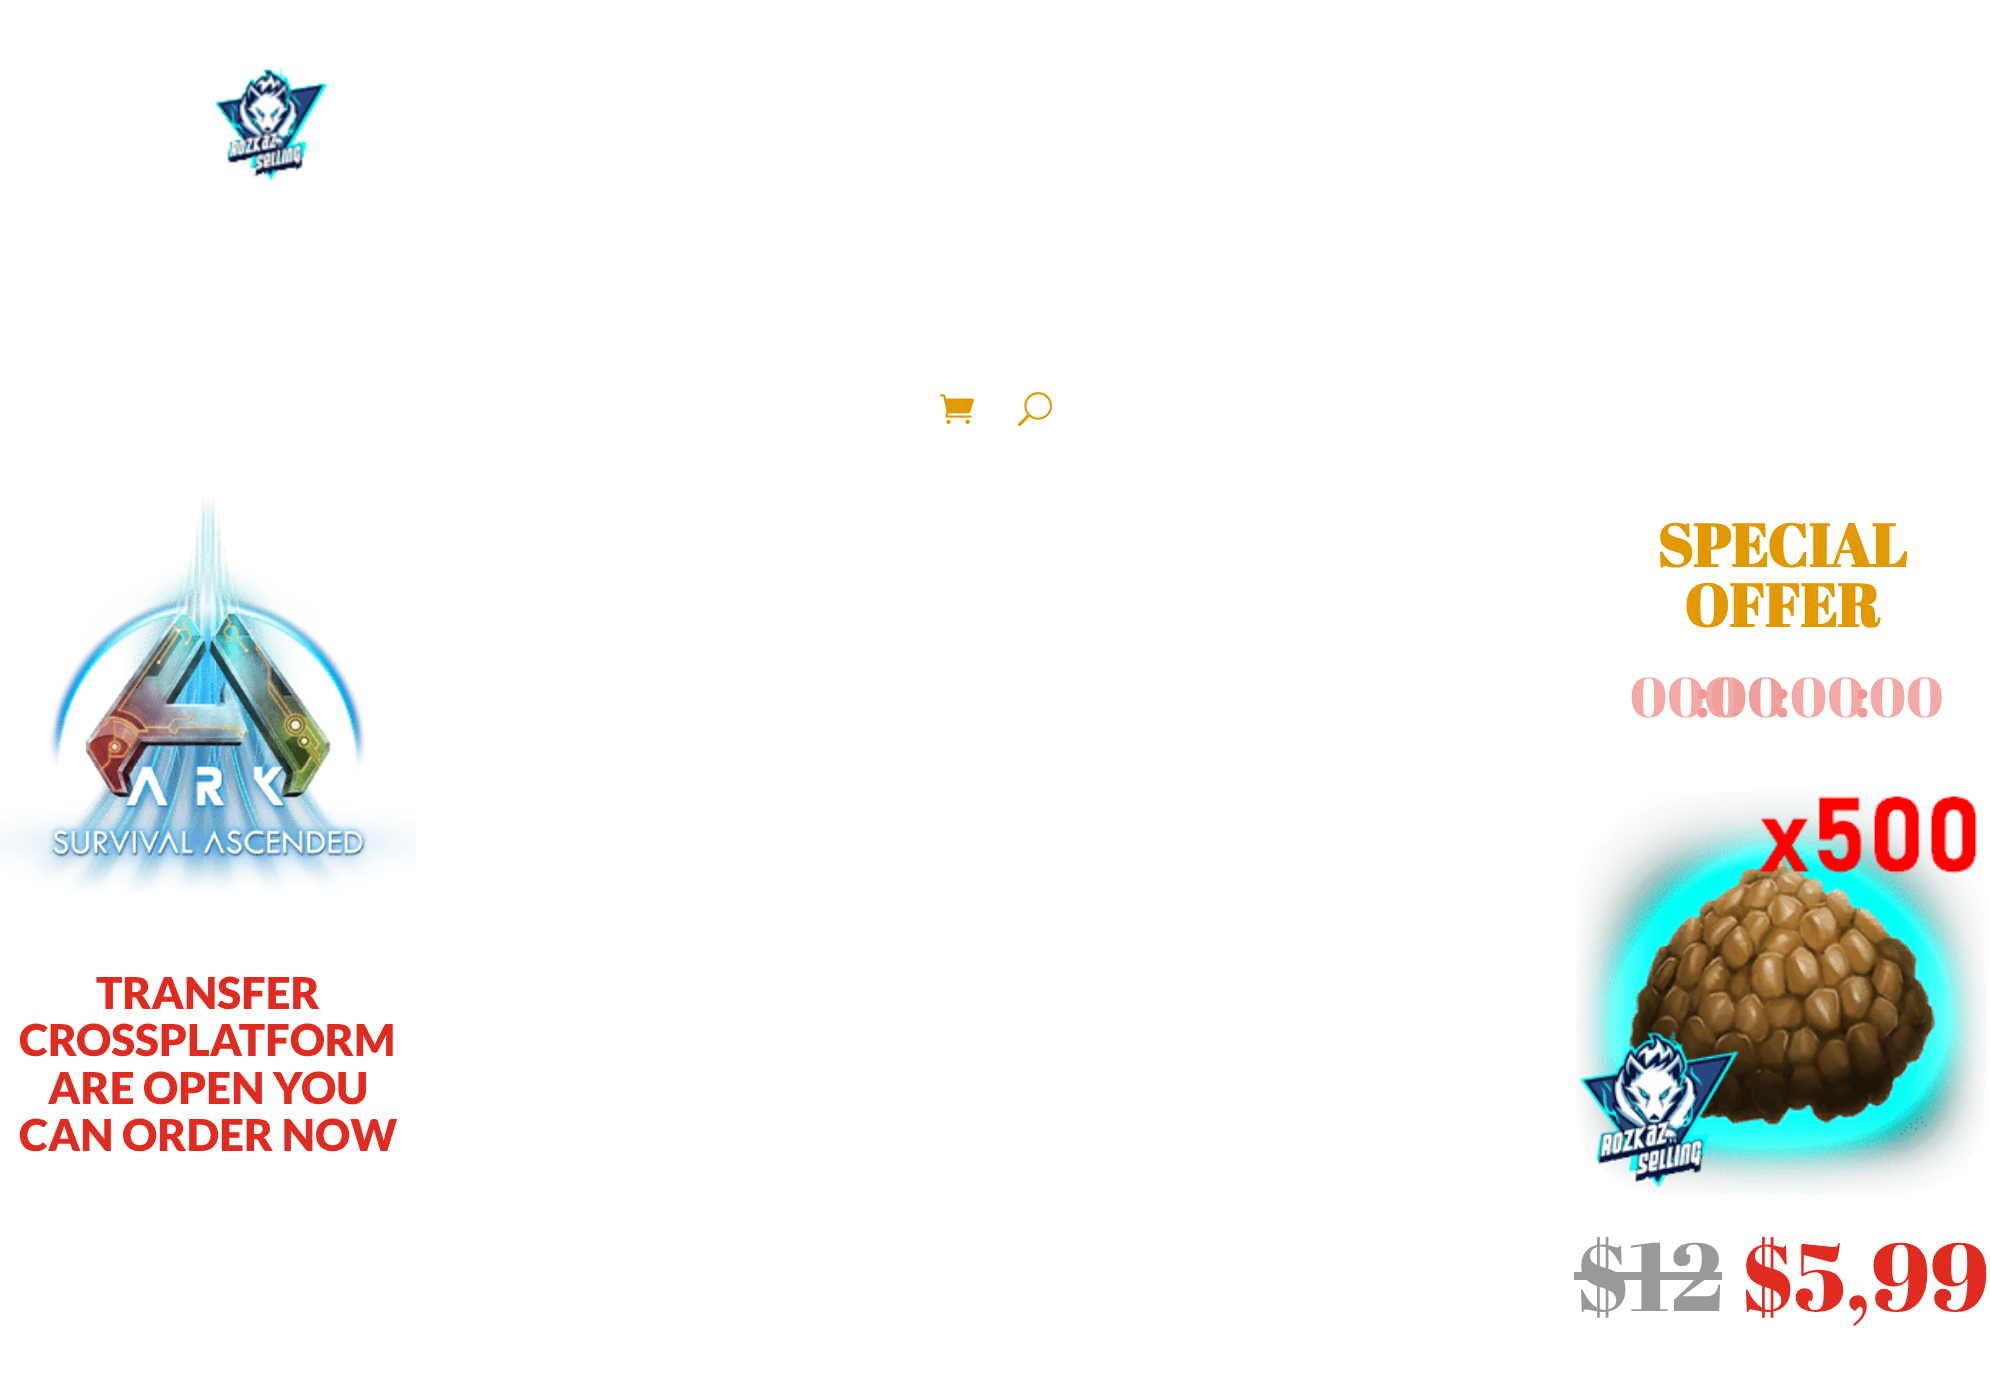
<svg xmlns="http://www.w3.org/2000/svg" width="1990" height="1373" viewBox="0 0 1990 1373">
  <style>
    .t1 { font: 900 44px Lato; fill: #e02b20; }
    .t2 { font: bold 60px Abril Fatface; fill: #e09900; }
    .t3 { font: 56px Abril Fatface; fill: #f3aaa6; }
    .t4 { font: 56px Abril Fatface; fill: #f19f9a; }
    .t5 { font: 56px Abril Fatface; fill: #f09893; }
    .t6 { font: 96px Abril Fatface; fill: #999; }
    .t7 { font: 96px Abril Fatface; fill: #e02b20; }
  </style>
  <rect width="100%" height="100%" fill="#fff"/>
  <image x="215" y="67" width="114" height="114" href="images/1.png"/>
  <image x="939" y="394" width="35" height="30" href="images/2.png"/>
  <image x="1017" y="392" width="35" height="35" href="images/3.png"/>
  <image x="0" y="498" width="416" height="395" href="images/4.png"/>
  <text x="96" y="1009" class="t1">TRANSFER</text>
  <text x="19" y="1056" class="t1">CROSSPLATFORM</text>
  <text x="48" y="1104" class="t1">ARE OPEN YOU</text>
  <text x="19" y="1151" class="t1">CAN ORDER NOW</text>
  <text x="1657" y="567" class="t2">SPECIAL</text>
  <text x="1684" y="627" class="t2">OFFER</text>
  <text x="1630" y="717" class="t3">000</text>
  <text x="1710" y="717" class="t4">00</text>
  <text x="1790" y="717" class="t3">00</text>
  <text x="1869" y="717" class="t3">00</text>
  <text x="1695" y="717" class="t5">:</text>
  <text x="1775" y="717" class="t5">:</text>
  <text x="1855" y="717" class="t5">:</text>
  <image x="1576" y="791" width="412" height="405" href="images/5.png"/>
  <text x="1575" y="1311" class="t6">$12</text>
  <rect x="1574" y="1272" width="148" height="8" fill="#999"/>
  <text x="1740" y="1311" class="t7">$5,99</text>
</svg>
